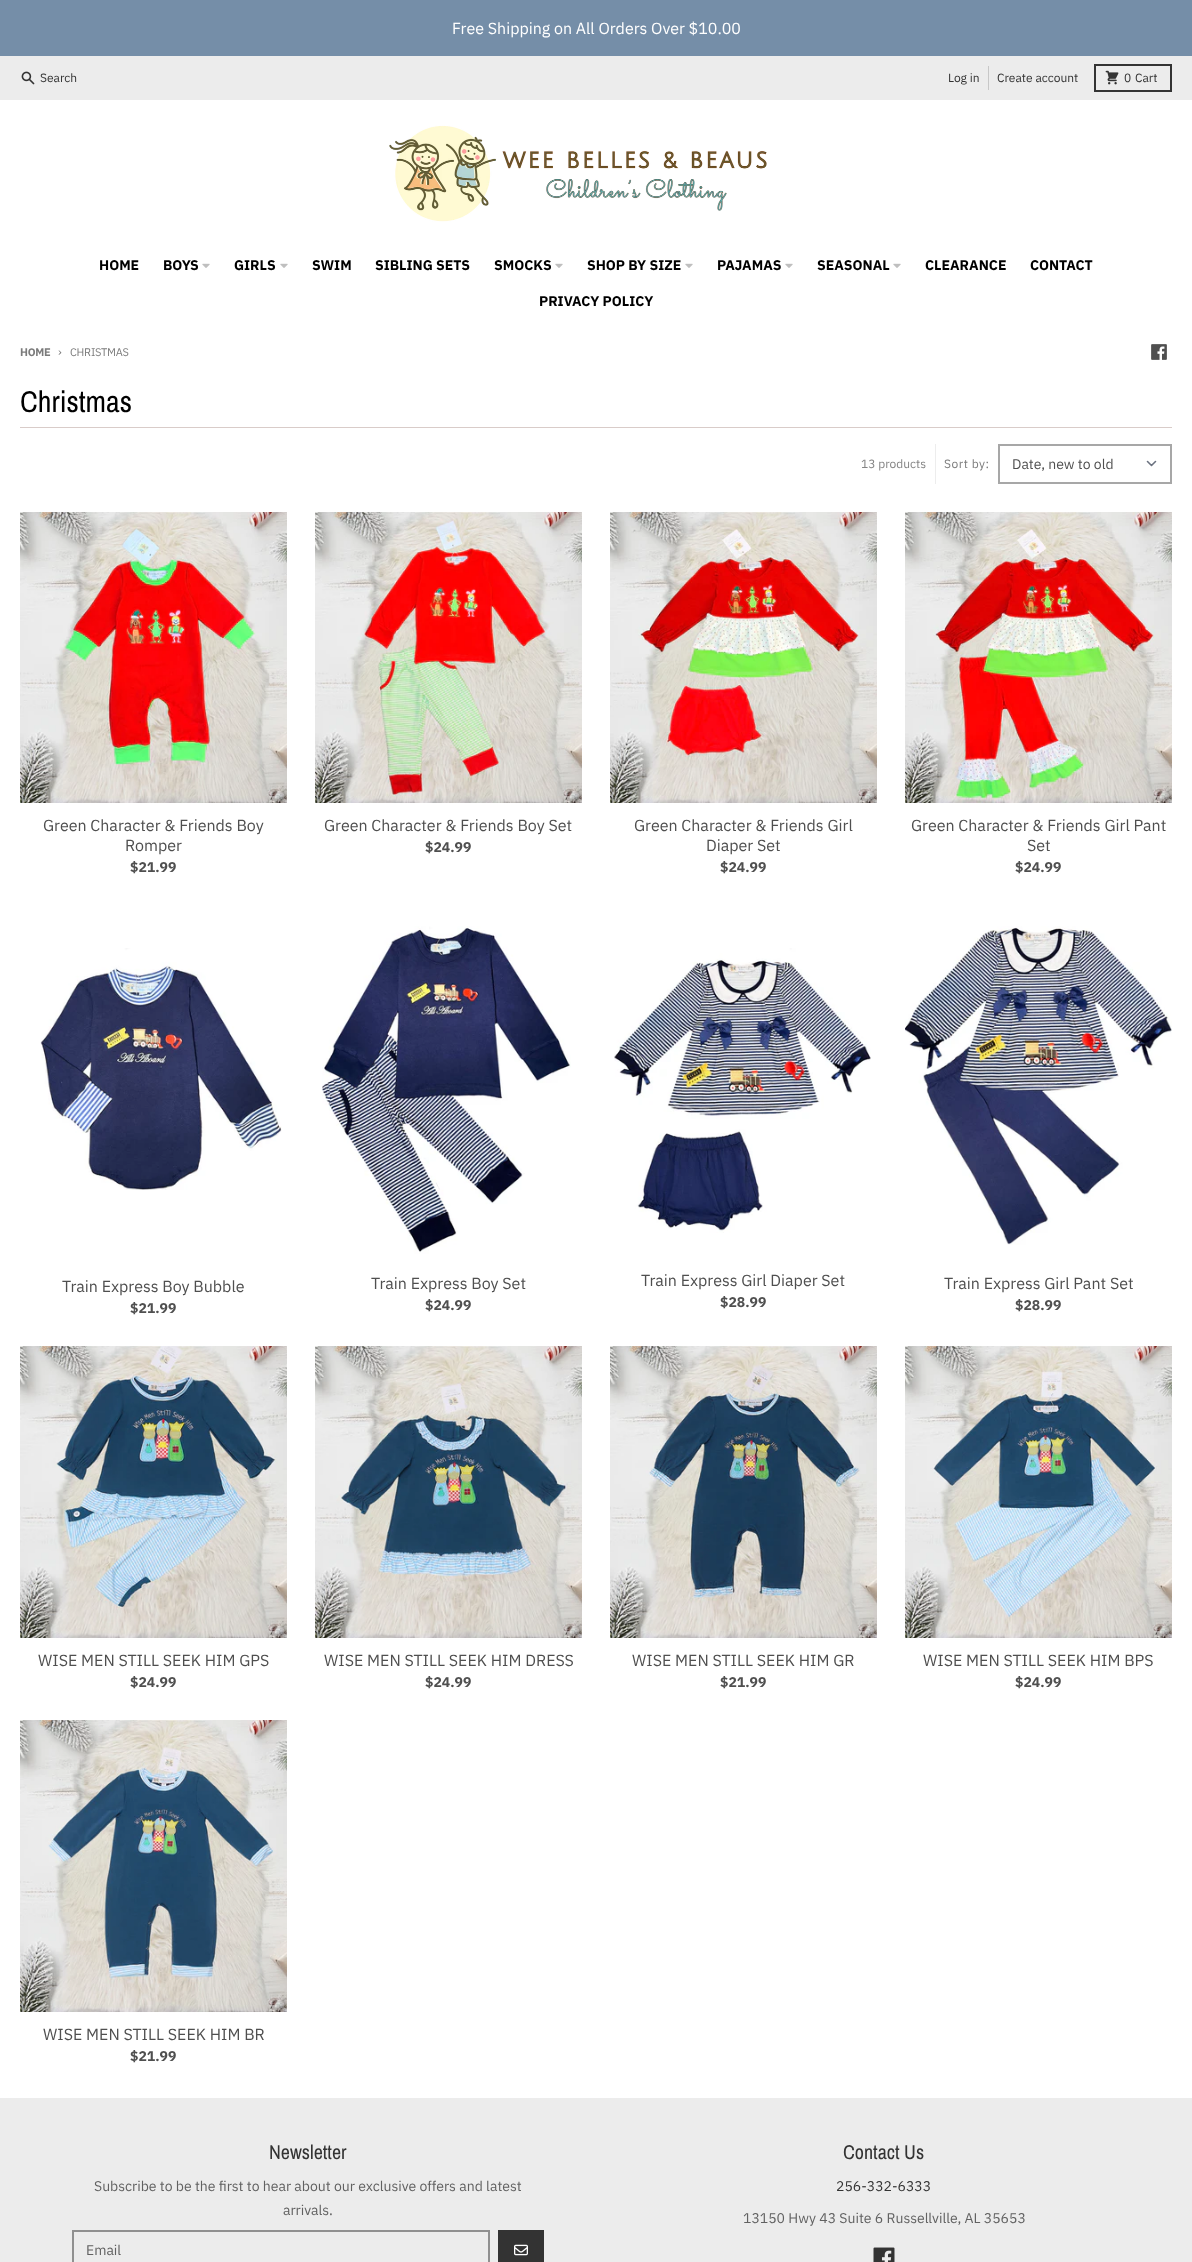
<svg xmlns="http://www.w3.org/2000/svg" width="1192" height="2262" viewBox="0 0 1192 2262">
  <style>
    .t1 { font: 16px IBM Plex Sans; fill: #fff; }
    .t2 { font: 12px IBM Plex Sans; fill: #333; }
    .t3 { font: bold 14px IBM Plex Sans; fill: #000; }
    .t4 { font: bold 11px IBM Plex Sans; letter-spacing: -0.25px; fill: #7b7b7b; }
    .t5 { font: 12px IBM Plex Sans; letter-spacing: -0.25px; fill: #7b7b7b; }
    .t6 { font: 11px IBM Plex Sans; letter-spacing: -0.25px; fill: #7b7b7b; }
    .t7 { font: 30px Archivo Narrow; fill: #000; }
    .t8 { font: 12px IBM Plex Sans; fill: #848484; }
    .t9 { font: 12px IBM Plex Sans; letter-spacing: 0.5px; fill: #7b7b7b; }
    .t10 { font: 14px IBM Plex Sans; fill: #4f4f4f; }
    .t11 { font: 16px IBM Plex Sans; fill: #4f4f4f; }
    .t12 { font: bold 14px IBM Plex Sans; fill: #4f4f4f; }
    .t13 { font: 20px Archivo Narrow; fill: #333; }
    .t14 { font: 14px IBM Plex Sans; fill: #616161; }
    .t15 { font: 14px IBM Plex Sans; fill: #333; }
  </style>
  <rect width="100%" height="100%" fill="#ececec"/>
  <rect x="0" y="0" width="1192" height="56" fill="#758ea8"/>
  <text x="452" y="34" class="t1">Free Shipping on All Orders Over $10.00</text>
  <image x="21" y="71" width="14" height="14" href="images/1.png"/>
  <text x="40" y="82" class="t2">Search</text>
  <text x="948" y="82" class="t2">Log in</text>
  <rect x="988" y="66" width="1" height="24" fill="#c7c7c7"/>
  <text x="997" y="82" class="t2">Create account</text>
  <rect x="1095" y="65" width="76" height="26" fill="none" stroke="#333" stroke-width="2"/>
  <image x="1105" y="70" width="14" height="15" href="images/2.png"/>
  <text x="1124" y="82" class="t2">0</text>
  <text x="1135" y="82" class="t2">Cart</text>
  <rect x="0" y="100" width="1192" height="1998" fill="#fff"/>
  <image x="389" y="125" width="378" height="97" href="images/3.png"/>
  <text x="99" y="270" class="t3">HOME</text>
  <text x="163" y="270" class="t3">BOYS</text>
  <image x="202" y="263" width="8" height="5" href="images/4.png"/>
  <text x="234" y="270" class="t3">GIRLS</text>
  <image x="280" y="263" width="8" height="5" href="images/4.png"/>
  <text x="312" y="270" class="t3">SWIM</text>
  <text x="375" y="270" class="t3">SIBLING SETS</text>
  <text x="494" y="270" class="t3">SMOCKS</text>
  <image x="555" y="263" width="8" height="5" href="images/4.png"/>
  <text x="587" y="270" class="t3">SHOP BY SIZE</text>
  <image x="685" y="263" width="8" height="5" href="images/4.png"/>
  <text x="717" y="270" class="t3">PAJAMAS</text>
  <image x="785" y="263" width="8" height="5" href="images/4.png"/>
  <text x="817" y="270" class="t3">SEASONAL</text>
  <image x="893" y="263" width="8" height="5" href="images/4.png"/>
  <text x="925" y="270" class="t3">CLEARANCE</text>
  <text x="1030" y="270" class="t3">CONTACT</text>
  <text x="539" y="306" class="t3">PRIVACY POLICY</text>
  <text x="20" y="356" class="t4">HOME</text>
  <text x="58" y="356" class="t5">›</text>
  <text x="70" y="356" class="t6">CHRISTMAS</text>
  <image x="1151" y="344" width="16" height="16" href="images/5.png"/>
  <rect x="20" y="427" width="1152" height="1" fill="#d9ccc9"/>
  <text x="20" y="412" class="t7">Christmas</text>
  <text x="861" y="468" class="t8">13 products</text>
  <rect x="935" y="444" width="1" height="40" fill="#ededed"/>
  <text x="944" y="468" class="t9">Sort by:</text>
  <path d="M1147.5 461.5L1151.5 465.5L1155.5 461.5" fill="none" stroke="#6b7280" stroke-width="1.6" stroke-linecap="round" stroke-linejoin="round"/>
  <rect x="999" y="445" width="172" height="38" fill="none" stroke="#a7a7a7" stroke-width="2"/>
  <text x="1012" y="469" class="t10">Date, new to old</text>
  <image x="20" y="512" width="267" height="291" href="images/6.png"/>
  <text x="43" y="831" class="t11">Green Character &amp; Friends Boy</text>
  <text x="125" y="851" class="t11">Romper</text>
  <text x="130" y="872" class="t12">$21.99</text>
  <image x="315" y="512" width="267" height="291" href="images/7.png"/>
  <text x="324" y="831" class="t11">Green Character &amp; Friends Boy Set</text>
  <text x="425" y="852" class="t12">$24.99</text>
  <image x="610" y="512" width="267" height="291" href="images/8.png"/>
  <text x="634" y="831" class="t11">Green Character &amp; Friends Girl</text>
  <text x="706" y="851" class="t11">Diaper Set</text>
  <text x="720" y="872" class="t12">$24.99</text>
  <image x="905" y="512" width="267" height="291" href="images/9.png"/>
  <text x="911" y="831" class="t11">Green Character &amp; Friends Girl Pant</text>
  <text x="1027" y="851" class="t11">Set</text>
  <text x="1015" y="872" class="t12">$24.99</text>
  <image x="40" y="948" width="242" height="242" href="images/10.png"/>
  <text x="62" y="1292" class="t11">Train Express Boy Bubble</text>
  <text x="130" y="1313" class="t12">$21.99</text>
  <image x="322" y="926" width="249" height="328" href="images/11.png"/>
  <text x="371" y="1289" class="t11">Train Express Boy Set</text>
  <text x="425" y="1310" class="t12">$24.99</text>
  <image x="614" y="948" width="257" height="285" href="images/12.png"/>
  <text x="641" y="1286" class="t11">Train Express Girl Diaper Set</text>
  <text x="720" y="1307" class="t12">$28.99</text>
  <image x="905" y="926" width="267" height="319" href="images/13.png"/>
  <text x="944" y="1289" class="t11">Train Express Girl Pant Set</text>
  <text x="1015" y="1310" class="t12">$28.99</text>
  <image x="20" y="1346" width="267" height="292" href="images/14.png"/>
  <text x="38" y="1666" class="t11">WISE MEN STILL SEEK HIM GPS</text>
  <text x="130" y="1687" class="t12">$24.99</text>
  <image x="315" y="1346" width="267" height="292" href="images/15.png"/>
  <text x="324" y="1666" class="t11">WISE MEN STILL SEEK HIM DRESS</text>
  <text x="425" y="1687" class="t12">$24.99</text>
  <image x="610" y="1346" width="267" height="292" href="images/16.png"/>
  <text x="632" y="1666" class="t11">WISE MEN STILL SEEK HIM GR</text>
  <text x="720" y="1687" class="t12">$21.99</text>
  <image x="905" y="1346" width="267" height="292" href="images/17.png"/>
  <text x="923" y="1666" class="t11">WISE MEN STILL SEEK HIM BPS</text>
  <text x="1015" y="1687" class="t12">$24.99</text>
  <image x="20" y="1720" width="267" height="292" href="images/18.png"/>
  <text x="43" y="2040" class="t11">WISE MEN STILL SEEK HIM BR</text>
  <text x="130" y="2061" class="t12">$21.99</text>
  <text x="269" y="2159" class="t13">Newsletter</text>
  <text x="94" y="2191" class="t14">Subscribe to be the first to hear about our exclusive offers and latest</text>
  <text x="283" y="2215" class="t14">arrivals.</text>
  <rect x="73" y="2231" width="416" height="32" fill="none" stroke="#909090" stroke-width="2"/>
  <text x="86" y="2255" class="t14">Email</text>
  <rect x="498" y="2230" width="46" height="32" fill="#333"/>
  <image x="514" y="2244" width="14" height="12" href="images/19.png"/>
  <text x="843" y="2159" class="t13">Contact Us</text>
  <text x="836" y="2191" class="t15">256-332-6333</text>
  <text x="743" y="2223" class="t14">13150 Hwy 43 Suite 6 Russellville, AL 35653</text>
  <image x="873" y="2247" width="22" height="15" href="images/20.png"/>
</svg>
